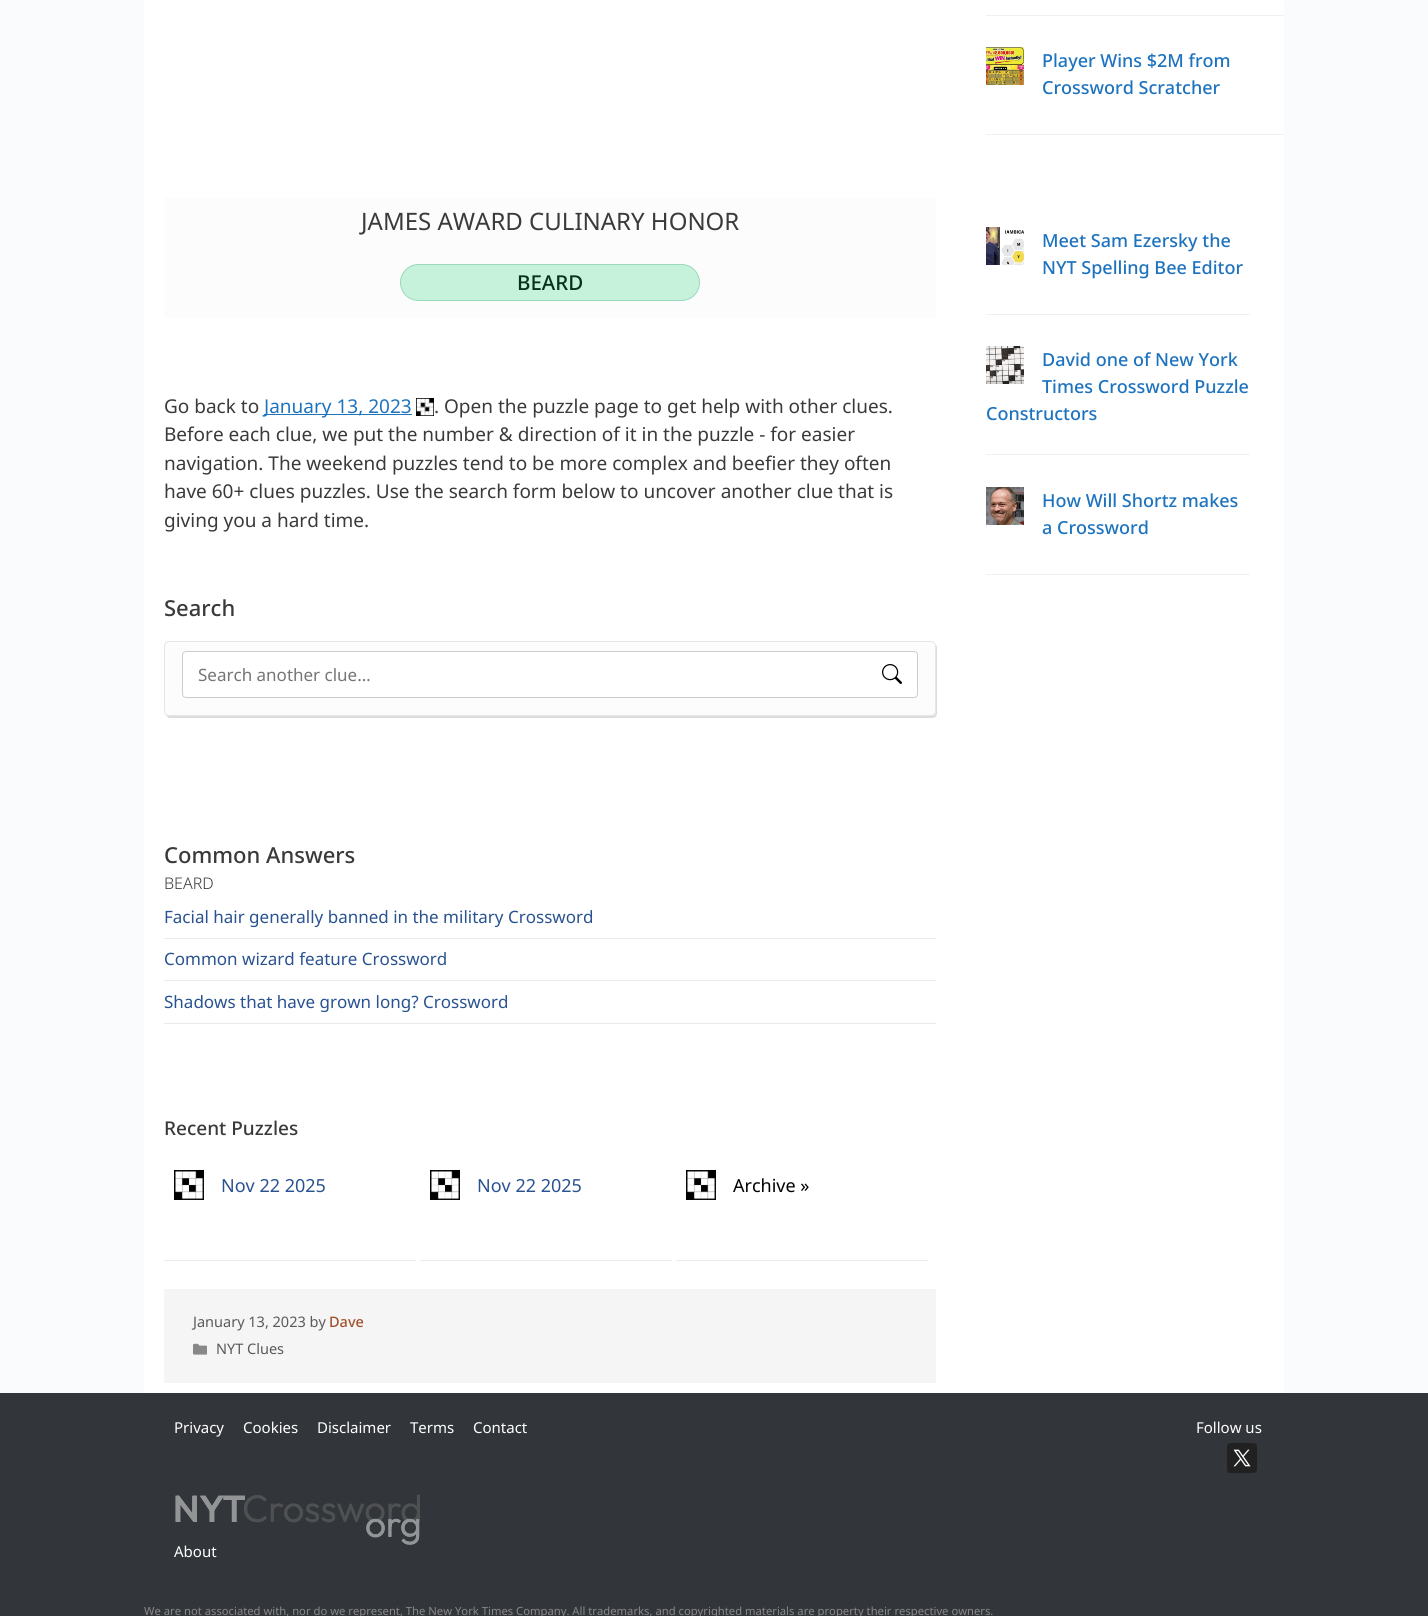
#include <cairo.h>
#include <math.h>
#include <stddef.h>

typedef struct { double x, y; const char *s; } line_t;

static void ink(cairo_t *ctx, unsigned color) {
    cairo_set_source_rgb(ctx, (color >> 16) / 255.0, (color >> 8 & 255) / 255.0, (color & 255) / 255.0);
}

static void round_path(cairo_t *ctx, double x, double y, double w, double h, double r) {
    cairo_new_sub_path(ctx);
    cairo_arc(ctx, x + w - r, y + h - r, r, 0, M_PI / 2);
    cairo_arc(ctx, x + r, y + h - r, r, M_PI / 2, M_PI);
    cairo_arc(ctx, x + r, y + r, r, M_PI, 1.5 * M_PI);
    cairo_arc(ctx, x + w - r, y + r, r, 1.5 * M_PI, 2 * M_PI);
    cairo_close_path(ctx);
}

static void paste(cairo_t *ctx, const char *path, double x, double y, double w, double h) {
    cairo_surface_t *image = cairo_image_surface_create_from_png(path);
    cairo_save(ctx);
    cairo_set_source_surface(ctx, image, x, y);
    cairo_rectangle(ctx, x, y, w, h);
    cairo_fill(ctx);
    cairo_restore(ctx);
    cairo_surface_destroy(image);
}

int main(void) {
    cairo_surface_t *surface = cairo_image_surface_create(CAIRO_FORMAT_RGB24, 1428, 1616);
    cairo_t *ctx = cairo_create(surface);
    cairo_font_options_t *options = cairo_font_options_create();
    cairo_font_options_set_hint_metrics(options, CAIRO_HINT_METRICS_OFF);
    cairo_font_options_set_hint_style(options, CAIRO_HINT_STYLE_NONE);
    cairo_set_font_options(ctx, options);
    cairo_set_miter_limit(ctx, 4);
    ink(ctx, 0xF9FBFC);
    cairo_paint(ctx);
    ink(ctx, 0xFFFFFF);
    cairo_rectangle(ctx, 144, 0, 1140, 1393);
    cairo_fill(ctx);
    ink(ctx, 0xFCFCFC);
    cairo_rectangle(ctx, 164, 198, 772, 120);
    cairo_fill(ctx);
    cairo_select_font_face(ctx, "Noto Sans", CAIRO_FONT_SLANT_NORMAL, CAIRO_FONT_WEIGHT_NORMAL);
    cairo_set_font_size(ctx, 24);
    ink(ctx, 0x3A3A3A);
    cairo_move_to(ctx, 361, 230);
    cairo_show_text(ctx, "JAMES AWARD CULINARY HONOR");
    ink(ctx, 0xC6F1DB);
    round_path(ctx, 400.5, 264.5, 299, 36, 18);
    cairo_fill_preserve(ctx);
    ink(ctx, 0x9BD8BC);
    cairo_set_line_width(ctx, 1);
    cairo_stroke(ctx);
    cairo_select_font_face(ctx, "Noto Sans Medium", CAIRO_FONT_SLANT_NORMAL, CAIRO_FONT_WEIGHT_NORMAL);
    cairo_set_font_size(ctx, 20.5);
    ink(ctx, 0x07321A);
    cairo_move_to(ctx, 517, 290);
    cairo_show_text(ctx, "BEARD");
    cairo_select_font_face(ctx, "Noto Sans", CAIRO_FONT_SLANT_NORMAL, CAIRO_FONT_WEIGHT_NORMAL);
    cairo_set_font_size(ctx, 19);
    ink(ctx, 0x3A3A3A);
    cairo_move_to(ctx, 164, 413);
    cairo_show_text(ctx, "Go back to");
    ink(ctx, 0x1E73BE);
    cairo_rectangle(ctx, 264, 414, 148, 1);
    cairo_fill(ctx);
    cairo_move_to(ctx, 264, 413);
    cairo_show_text(ctx, "January 13, 2023");
    paste(ctx, "media/1.png", 416, 398, 18, 18);
    ink(ctx, 0x3A3A3A);
    {
        static const line_t items[] = {
            {434, 413, ". Open the puzzle page to get help with other clues."},
            {164, 441, "Before each clue, we put the number & direction of it in the puzzle - for easier"},
            {164, 470, "navigation. The weekend puzzles tend to be more complex and beefier they often"},
            {164, 498, "have 60+ clues puzzles. Use the search form below to uncover another clue that is"},
            {164, 527, "giving you a hard time."},
        };
        for (size_t i = 0; i < sizeof items / sizeof *items; i++) {
            cairo_move_to(ctx, items[i].x, items[i].y);
            cairo_show_text(ctx, items[i].s);
        }
    }
    cairo_select_font_face(ctx, "Noto Sans Medium", CAIRO_FONT_SLANT_NORMAL, CAIRO_FONT_WEIGHT_NORMAL);
    cairo_set_font_size(ctx, 22);
    cairo_move_to(ctx, 164, 616);
    cairo_show_text(ctx, "Search");
    ink(ctx, 0xDCDCDC);
    cairo_new_path(ctx);
    cairo_move_to(ctx, 165, 714);
    cairo_curve_to(ctx, 166, 716, 168, 718, 170, 718);
    cairo_line_to(ctx, 932, 718);
    cairo_curve_to(ctx, 935, 718, 937, 716, 937, 713);
    cairo_line_to(ctx, 937, 648);
    cairo_curve_to(ctx, 937, 647, 937, 646, 936, 645);
    cairo_line_to(ctx, 936, 711);
    cairo_curve_to(ctx, 936, 714, 934, 716, 931, 716);
    cairo_line_to(ctx, 169, 716);
    cairo_curve_to(ctx, 167, 716, 166, 715, 165, 714);
    cairo_close_path(ctx);
    cairo_fill(ctx);
    ink(ctx, 0xFCFCFC);
    round_path(ctx, 164.5, 641.5, 771, 74, 4.5);
    cairo_fill_preserve(ctx);
    ink(ctx, 0xE4E6E9);
    cairo_stroke(ctx);
    ink(ctx, 0xFFFFFF);
    round_path(ctx, 182, 651, 736, 47, 4);
    cairo_fill(ctx);
    paste(ctx, "media/2.png", 882, 664, 20, 20);
    round_path(ctx, 182.5, 651.5, 735, 46, 3.5);
    ink(ctx, 0xCCCCCC);
    cairo_stroke(ctx);
    cairo_select_font_face(ctx, "Noto Sans", CAIRO_FONT_SLANT_NORMAL, CAIRO_FONT_WEIGHT_NORMAL);
    cairo_set_font_size(ctx, 17);
    ink(ctx, 0x757575);
    cairo_move_to(ctx, 198, 681);
    cairo_show_text(ctx, "Search another clue…");
    cairo_select_font_face(ctx, "Noto Sans Medium", CAIRO_FONT_SLANT_NORMAL, CAIRO_FONT_WEIGHT_NORMAL);
    cairo_set_font_size(ctx, 22);
    ink(ctx, 0x3A3A3A);
    cairo_move_to(ctx, 164, 863);
    cairo_show_text(ctx, "Common Answers");
    cairo_select_font_face(ctx, "Noto Sans Light", CAIRO_FONT_SLANT_NORMAL, CAIRO_FONT_WEIGHT_NORMAL);
    cairo_set_font_size(ctx, 16);
    cairo_move_to(ctx, 164, 889);
    cairo_show_text(ctx, "BEARD");
    ink(ctx, 0xE9E9E9);
    cairo_rectangle(ctx, 164, 938, 772, 1);
    cairo_fill(ctx);
    cairo_select_font_face(ctx, "Noto Sans", CAIRO_FONT_SLANT_NORMAL, CAIRO_FONT_WEIGHT_NORMAL);
    cairo_set_font_size(ctx, 17);
    ink(ctx, 0x295290);
    cairo_move_to(ctx, 164, 923);
    cairo_show_text(ctx, "Facial hair generally banned in the military Crossword");
    ink(ctx, 0xE9E9E9);
    cairo_rectangle(ctx, 164, 980, 772, 1);
    cairo_fill(ctx);
    ink(ctx, 0x295290);
    cairo_move_to(ctx, 164, 965);
    cairo_show_text(ctx, "Common wizard feature Crossword");
    ink(ctx, 0xE9E9E9);
    cairo_rectangle(ctx, 164, 1023, 772, 1);
    cairo_fill(ctx);
    ink(ctx, 0x295290);
    cairo_move_to(ctx, 164, 1008);
    cairo_show_text(ctx, "Shadows that have grown long? Crossword");
    cairo_select_font_face(ctx, "Noto Sans Medium", CAIRO_FONT_SLANT_NORMAL, CAIRO_FONT_WEIGHT_NORMAL);
    cairo_set_font_size(ctx, 19);
    ink(ctx, 0x3A3A3A);
    cairo_move_to(ctx, 164, 1135);
    cairo_show_text(ctx, "Recent Puzzles");
    ink(ctx, 0xE9E9E9);
    cairo_rectangle(ctx, 164, 1260, 252, 1);
    cairo_fill(ctx);
    paste(ctx, "media/3.png", 174, 1170, 30, 30);
    cairo_select_font_face(ctx, "Noto Sans", CAIRO_FONT_SLANT_NORMAL, CAIRO_FONT_WEIGHT_NORMAL);
    cairo_set_font_size(ctx, 18);
    ink(ctx, 0x295290);
    cairo_move_to(ctx, 221, 1192);
    cairo_show_text(ctx, "Nov 22 2025");
    ink(ctx, 0xE9E9E9);
    cairo_rectangle(ctx, 420, 1260, 252, 1);
    cairo_fill(ctx);
    paste(ctx, "media/3.png", 430, 1170, 30, 30);
    ink(ctx, 0x295290);
    cairo_move_to(ctx, 477, 1192);
    cairo_show_text(ctx, "Nov 22 2025");
    ink(ctx, 0xE9E9E9);
    cairo_rectangle(ctx, 676, 1260, 252, 1);
    cairo_fill(ctx);
    paste(ctx, "media/3.png", 686, 1170, 30, 30);
    ink(ctx, 0x000000);
    cairo_move_to(ctx, 733, 1192);
    cairo_show_text(ctx, "Archive »");
    ink(ctx, 0xF5F5F5);
    cairo_rectangle(ctx, 164, 1289, 772, 94);
    cairo_fill(ctx);
    cairo_set_font_size(ctx, 14.5);
    ink(ctx, 0x595959);
    cairo_move_to(ctx, 193, 1327);
    cairo_show_text(ctx, "January 13, 2023 by");
    cairo_select_font_face(ctx, "Noto Sans Medium", CAIRO_FONT_SLANT_NORMAL, CAIRO_FONT_WEIGHT_NORMAL);
    ink(ctx, 0xA0522D);
    cairo_move_to(ctx, 329, 1327);
    cairo_show_text(ctx, "Dave");
    paste(ctx, "media/4.png", 193, 1343, 14, 12);
    cairo_select_font_face(ctx, "Noto Sans", CAIRO_FONT_SLANT_NORMAL, CAIRO_FONT_WEIGHT_NORMAL);
    ink(ctx, 0x595959);
    cairo_move_to(ctx, 216, 1354);
    cairo_show_text(ctx, "NYT Clues");
    ink(ctx, 0xF0F0F0);
    cairo_rectangle(ctx, 986, 15, 298, 1);
    cairo_fill(ctx);
    cairo_rectangle(ctx, 986, 134, 298, 1);
    cairo_fill(ctx);
    paste(ctx, "media/5.png", 986, 47, 38, 38);
    cairo_select_font_face(ctx, "Noto Sans Medium", CAIRO_FONT_SLANT_NORMAL, CAIRO_FONT_WEIGHT_NORMAL);
    cairo_set_font_size(ctx, 18);
    ink(ctx, 0x1E73BE);
    cairo_move_to(ctx, 1042, 67);
    cairo_show_text(ctx, "Player Wins $2M from");
    cairo_move_to(ctx, 1042, 94);
    cairo_show_text(ctx, "Crossword Scratcher");
    ink(ctx, 0xF0F0F0);
    cairo_rectangle(ctx, 986, 314, 264, 1);
    cairo_fill(ctx);
    paste(ctx, "media/6.png", 986, 227, 38, 38);
    ink(ctx, 0x1E73BE);
    cairo_move_to(ctx, 1042, 247);
    cairo_show_text(ctx, "Meet Sam Ezersky the");
    cairo_move_to(ctx, 1042, 274);
    cairo_show_text(ctx, "NYT Spelling Bee Editor");
    ink(ctx, 0xF0F0F0);
    cairo_rectangle(ctx, 986, 454, 264, 1);
    cairo_fill(ctx);
    paste(ctx, "media/7.png", 986, 346, 38, 38);
    ink(ctx, 0x1E73BE);
    {
        static const line_t items[] = {
            {1042, 366, "David one of New York"},
            {1042, 393, "Times Crossword Puzzle"},
            {986, 420, "Constructors"},
        };
        for (size_t i = 0; i < sizeof items / sizeof *items; i++) {
            cairo_move_to(ctx, items[i].x, items[i].y);
            cairo_show_text(ctx, items[i].s);
        }
    }
    ink(ctx, 0xF0F0F0);
    cairo_rectangle(ctx, 986, 574, 264, 1);
    cairo_fill(ctx);
    paste(ctx, "media/8.png", 986, 487, 38, 38);
    ink(ctx, 0x1E73BE);
    cairo_move_to(ctx, 1042, 507);
    cairo_show_text(ctx, "How Will Shortz makes");
    cairo_move_to(ctx, 1042, 534);
    cairo_show_text(ctx, "a Crossword");
    ink(ctx, 0x32353A);
    cairo_rectangle(ctx, 0, 1393, 1428, 223);
    cairo_fill(ctx);
    cairo_select_font_face(ctx, "Noto Sans", CAIRO_FONT_SLANT_NORMAL, CAIRO_FONT_WEIGHT_NORMAL);
    cairo_set_font_size(ctx, 15);
    ink(ctx, 0xFFFFFF);
    {
        static const line_t items[] = {
            {174, 1433, "Privacy"},
            {243, 1433, "Cookies"},
            {317, 1433, "Disclaimer"},
            {410, 1433, "Terms"},
            {473, 1433, "Contact"},
        };
        for (size_t i = 0; i < sizeof items / sizeof *items; i++) {
            cairo_move_to(ctx, items[i].x, items[i].y);
            cairo_show_text(ctx, items[i].s);
        }
    }
    paste(ctx, "media/9.png", 175, 1494, 245, 51);
    cairo_move_to(ctx, 174, 1557);
    cairo_show_text(ctx, "About");
    cairo_move_to(ctx, 1196, 1433);
    cairo_show_text(ctx, "Follow us");
    paste(ctx, "media/10.png", 1227, 1443, 30, 30);
    cairo_set_font_size(ctx, 11.25);
    ink(ctx, 0x888888);
    cairo_move_to(ctx, 144, 1615);
    cairo_show_text(ctx, "We are not associated with, nor do we represent, The New York Times Company. All trademarks, and copyrighted materials are property their respective owners.");
    cairo_surface_write_to_png(surface, "image.png");
    cairo_font_options_destroy(options);
    cairo_destroy(ctx);
    cairo_surface_destroy(surface);
    return 0;
}
